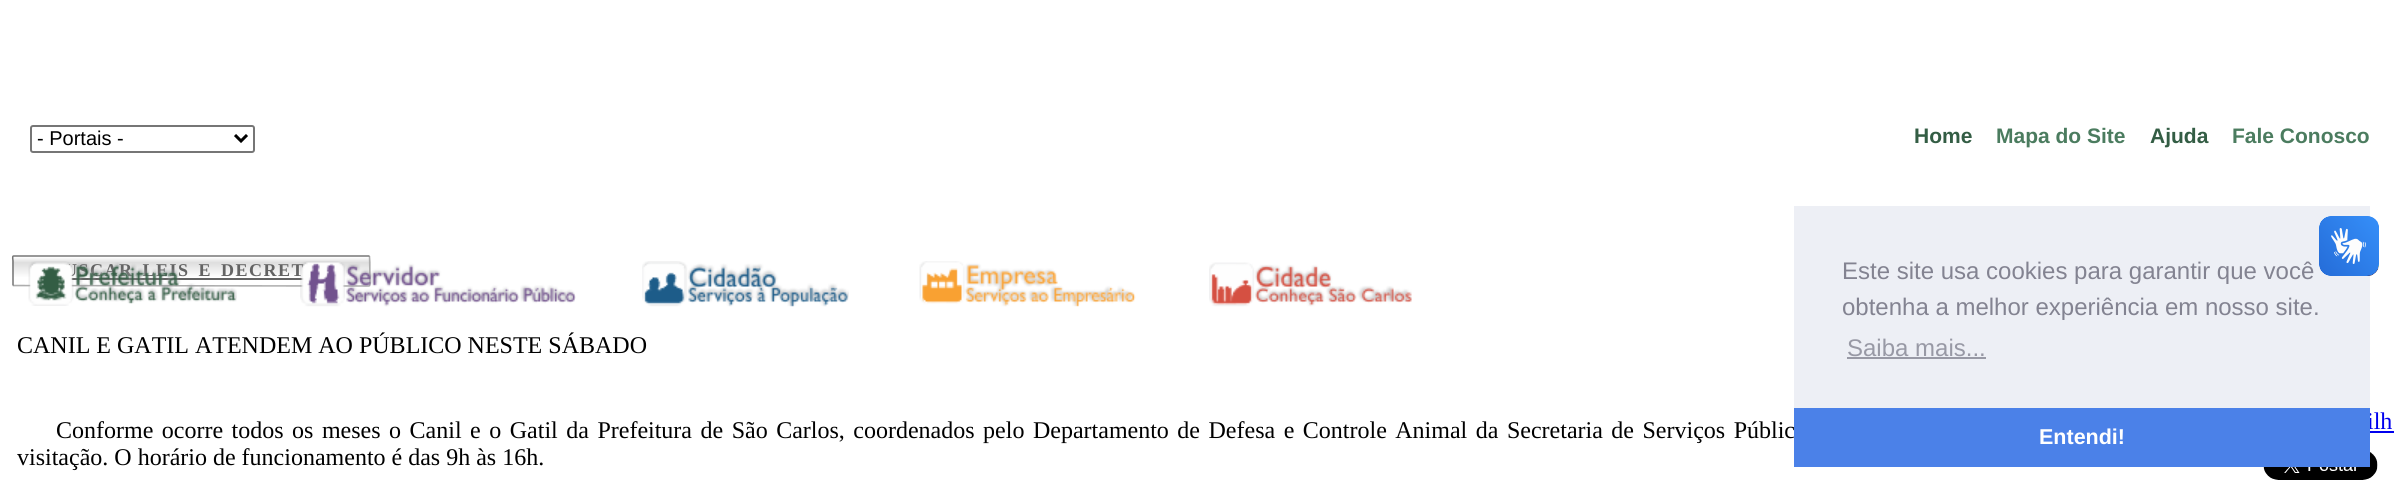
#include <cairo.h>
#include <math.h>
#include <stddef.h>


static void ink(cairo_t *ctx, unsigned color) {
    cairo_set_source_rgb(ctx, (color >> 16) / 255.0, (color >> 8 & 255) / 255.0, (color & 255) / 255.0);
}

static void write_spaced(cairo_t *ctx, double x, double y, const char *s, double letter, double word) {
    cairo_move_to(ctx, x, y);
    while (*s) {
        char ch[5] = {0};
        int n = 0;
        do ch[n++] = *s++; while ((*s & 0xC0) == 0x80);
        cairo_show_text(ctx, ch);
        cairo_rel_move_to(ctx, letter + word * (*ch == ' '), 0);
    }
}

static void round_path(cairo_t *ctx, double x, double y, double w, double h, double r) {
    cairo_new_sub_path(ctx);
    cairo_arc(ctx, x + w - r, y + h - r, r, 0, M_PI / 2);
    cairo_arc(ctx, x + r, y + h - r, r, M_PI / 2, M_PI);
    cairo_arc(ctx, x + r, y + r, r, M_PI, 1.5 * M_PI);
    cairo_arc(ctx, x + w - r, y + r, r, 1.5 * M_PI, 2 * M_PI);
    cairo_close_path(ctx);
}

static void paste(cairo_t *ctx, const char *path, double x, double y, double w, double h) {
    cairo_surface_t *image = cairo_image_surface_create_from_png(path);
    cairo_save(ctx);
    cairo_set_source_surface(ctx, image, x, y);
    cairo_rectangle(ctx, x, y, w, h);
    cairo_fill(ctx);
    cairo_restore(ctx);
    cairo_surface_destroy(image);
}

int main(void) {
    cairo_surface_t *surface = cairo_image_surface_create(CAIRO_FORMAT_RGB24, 2394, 490);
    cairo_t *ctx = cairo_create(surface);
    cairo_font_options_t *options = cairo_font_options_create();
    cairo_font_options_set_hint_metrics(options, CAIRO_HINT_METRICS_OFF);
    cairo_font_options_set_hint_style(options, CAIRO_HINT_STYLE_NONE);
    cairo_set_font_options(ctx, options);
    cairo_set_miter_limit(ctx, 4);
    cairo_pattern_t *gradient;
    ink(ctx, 0xFFFFFF);
    cairo_paint(ctx);
    round_path(ctx, 31, 126, 223, 26, 2);
    ink(ctx, 0x767676);
    cairo_stroke(ctx);
    cairo_new_path(ctx);
    cairo_move_to(ctx, 235, 135);
    cairo_line_to(ctx, 241, 141);
    cairo_line_to(ctx, 247, 135);
    ink(ctx, 0x000000);
    cairo_set_line_width(ctx, 3);
    cairo_stroke(ctx);
    cairo_select_font_face(ctx, "Liberation Sans", CAIRO_FONT_SLANT_NORMAL, CAIRO_FONT_WEIGHT_NORMAL);
    cairo_set_font_size(ctx, 20);
    cairo_move_to(ctx, 37, 145);
    cairo_show_text(ctx, "- Portais -");
    cairo_select_font_face(ctx, "Liberation Sans", CAIRO_FONT_SLANT_NORMAL, CAIRO_FONT_WEIGHT_BOLD);
    cairo_set_font_size(ctx, 21);
    ink(ctx, 0x335D44);
    cairo_move_to(ctx, 1914, 143);
    cairo_show_text(ctx, "Home");
    ink(ctx, 0x4B7C5F);
    cairo_move_to(ctx, 1996, 143);
    cairo_show_text(ctx, "Mapa do Site");
    ink(ctx, 0x335D44);
    cairo_move_to(ctx, 2150, 143);
    cairo_show_text(ctx, "Ajuda");
    ink(ctx, 0x4B7C5F);
    cairo_move_to(ctx, 2232, 143);
    cairo_show_text(ctx, "Fale Conosco");
    gradient = cairo_pattern_create_linear(191, 257, 191, 285);
    cairo_pattern_add_color_stop_rgba(gradient, 0, 1, 1, 1, 1);
    cairo_pattern_add_color_stop_rgba(gradient, 0.2, 0.871, 0.871, 0.871, 1);
    cairo_pattern_add_color_stop_rgba(gradient, 0.75, 1, 1, 1, 1);
    cairo_set_source(ctx, gradient);
    cairo_pattern_destroy(gradient);
    cairo_rectangle(ctx, 12, 257, 359, 20);
    cairo_fill(ctx);
    gradient = cairo_pattern_create_linear(191, 285, 191, 314);
    cairo_pattern_add_color_stop_rgba(gradient, 0, 1, 1, 1, 1);
    cairo_pattern_add_color_stop_rgba(gradient, 0.2, 0.871, 0.871, 0.871, 1);
    cairo_pattern_add_color_stop_rgba(gradient, 0.75, 1, 1, 1, 1);
    cairo_set_source(ctx, gradient);
    cairo_pattern_destroy(gradient);
    cairo_new_path(ctx);
    cairo_move_to(ctx, 12, 285);
    cairo_line_to(ctx, 371, 285);
    cairo_line_to(ctx, 371, 285.5);
    cairo_curve_to(ctx, 371, 286.5, 370.5, 287, 369.5, 287);
    cairo_line_to(ctx, 13.5, 287);
    cairo_curve_to(ctx, 12.5, 287, 12, 286.5, 12, 285.5);
    cairo_close_path(ctx);
    cairo_fill(ctx);
    cairo_new_path(ctx);
    cairo_move_to(ctx, 369.5, 256);
    cairo_line_to(ctx, 370, 280);
    cairo_curve_to(ctx, 370, 281.5, 370.5, 285.5, 369, 286);
    cairo_line_to(ctx, 13, 285.5);
    ink(ctx, 0xADADAD);
    cairo_set_line_width(ctx, 1.5);
    cairo_stroke(ctx);
    cairo_new_path(ctx);
    cairo_move_to(ctx, 13, 285.5);
    cairo_line_to(ctx, 13, 261);
    cairo_curve_to(ctx, 13, 260, 12, 256, 13.5, 256);
    cairo_line_to(ctx, 369.5, 256);
    ink(ctx, 0x737373);
    cairo_stroke(ctx);
    cairo_select_font_face(ctx, "Liberation Serif", CAIRO_FONT_SLANT_NORMAL, CAIRO_FONT_WEIGHT_BOLD);
    cairo_set_font_size(ctx, 18);
    ink(ctx, 0x636363);
    write_spaced(ctx, 64, 276, "USCAR LEIS E DECRET", 1.5, 3);
    cairo_rectangle(ctx, 70, 278, 234, 2);
    cairo_fill(ctx);
    paste(ctx, "media/1.png", 28, 261, 209, 45);
    paste(ctx, "media/2.png", 300, 261, 276, 46);
    paste(ctx, "media/3.png", 642, 261, 207, 46);
    paste(ctx, "media/4.png", 919, 261, 217, 46);
    paste(ctx, "media/5.png", 1209, 262, 203, 45);
    ink(ctx, 0xEDEFF5);
    cairo_rectangle(ctx, 1794, 206, 576, 202);
    cairo_fill(ctx);
    paste(ctx, "media/6.png", 2319, 216, 60, 60);
    paste(ctx, "media/7.png", 2319, 216, 60, 60);
    cairo_select_font_face(ctx, "Liberation Serif", CAIRO_FONT_SLANT_NORMAL, CAIRO_FONT_WEIGHT_NORMAL);
    cairo_set_font_size(ctx, 24);
    ink(ctx, 0x000000);
    cairo_move_to(ctx, 17, 353);
    cairo_show_text(ctx, "CANIL E GATIL ATENDEM AO PÚBLICO NESTE SÁBADO");
    write_spaced(ctx, 56, 438, "Conforme ocorre todos os meses o Canil e o Gatil da Prefeitura de São Carlos, coordenados pelo Departamento de Defesa e Controle Animal da Secretaria de Serviços Públic", 0, 2.5);
    cairo_move_to(ctx, 17, 465);
    cairo_show_text(ctx, "visitação. O horário de funcionamento é das 9h às 16h.");
    ink(ctx, 0x0000EE);
    cairo_move_to(ctx, 2367, 429);
    cairo_show_text(ctx, "ilh");
    cairo_rectangle(ctx, 2370, 431, 24, 2);
    cairo_fill(ctx);
    paste(ctx, "media/8.png", 2263, 452, 115, 28);
    cairo_select_font_face(ctx, "Liberation Sans", CAIRO_FONT_SLANT_NORMAL, CAIRO_FONT_WEIGHT_NORMAL);
    ink(ctx, 0x838391);
    cairo_move_to(ctx, 1842, 279);
    cairo_show_text(ctx, "Este site usa cookies para garantir que você");
    cairo_move_to(ctx, 1842, 315);
    cairo_show_text(ctx, "obtenha a melhor experiência em nosso site.");
    ink(ctx, 0x9899A5);
    cairo_move_to(ctx, 1847, 356);
    cairo_show_text(ctx, "Saiba mais...");
    cairo_rectangle(ctx, 1847, 357, 139, 2);
    cairo_fill(ctx);
    ink(ctx, 0x4B81E8);
    cairo_rectangle(ctx, 1794, 408, 576, 59);
    cairo_fill(ctx);
    cairo_select_font_face(ctx, "Liberation Sans", CAIRO_FONT_SLANT_NORMAL, CAIRO_FONT_WEIGHT_BOLD);
    cairo_set_font_size(ctx, 21.5);
    ink(ctx, 0xFFFFFF);
    cairo_move_to(ctx, 2039, 444);
    cairo_show_text(ctx, "Entendi!");
    cairo_surface_write_to_png(surface, "image.png");
    cairo_font_options_destroy(options);
    cairo_destroy(ctx);
    cairo_surface_destroy(surface);
    return 0;
}
